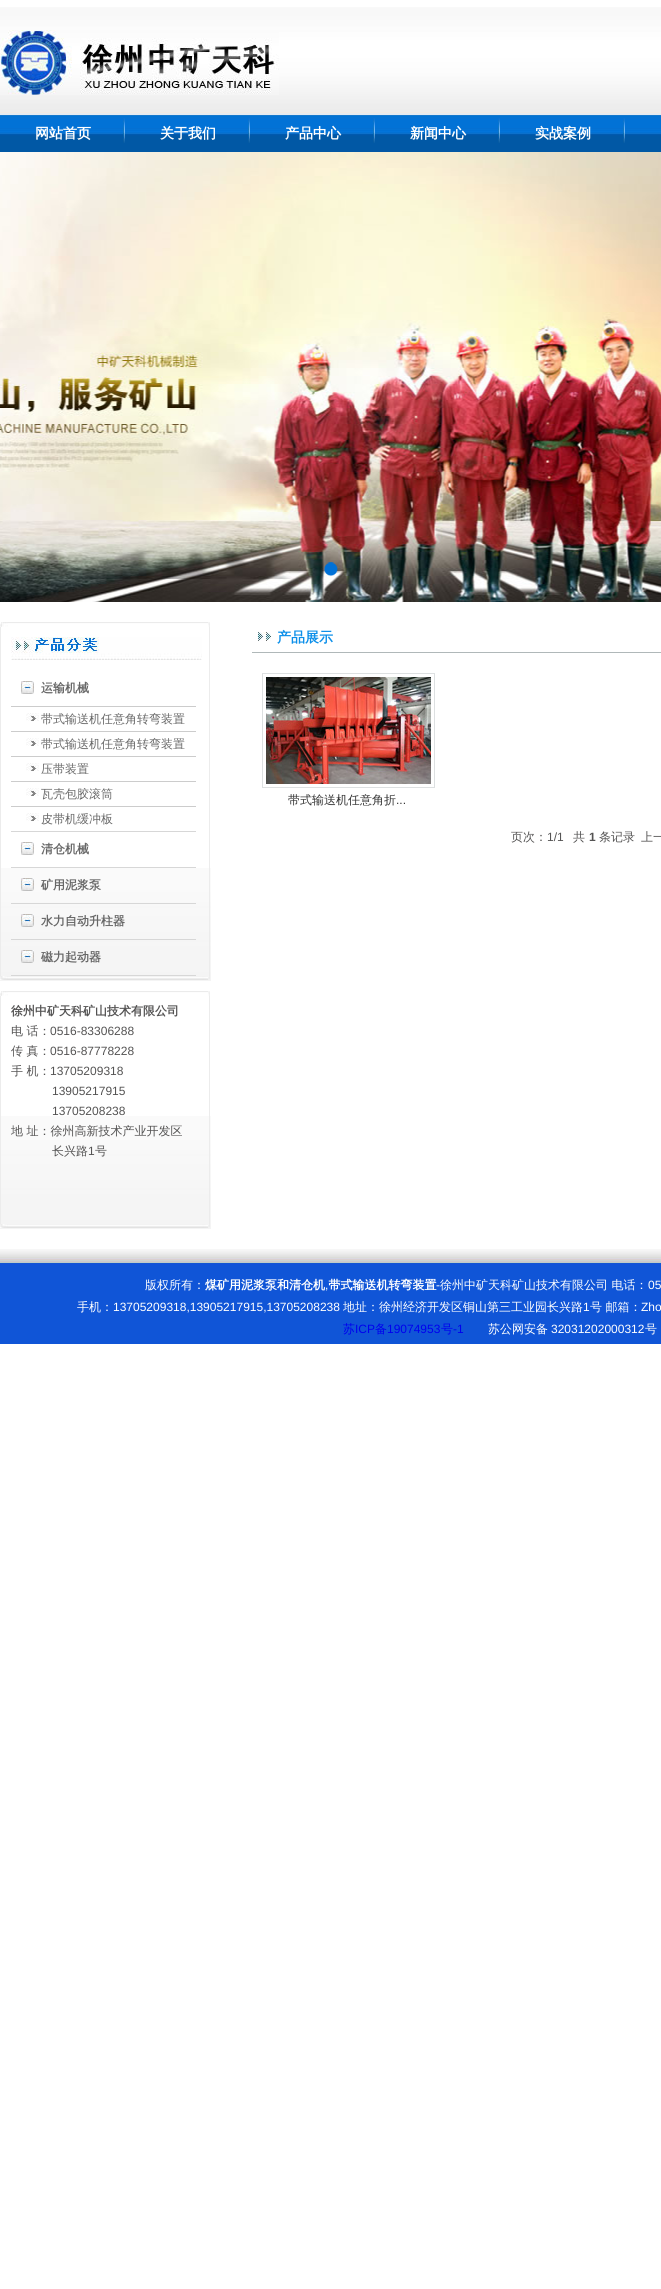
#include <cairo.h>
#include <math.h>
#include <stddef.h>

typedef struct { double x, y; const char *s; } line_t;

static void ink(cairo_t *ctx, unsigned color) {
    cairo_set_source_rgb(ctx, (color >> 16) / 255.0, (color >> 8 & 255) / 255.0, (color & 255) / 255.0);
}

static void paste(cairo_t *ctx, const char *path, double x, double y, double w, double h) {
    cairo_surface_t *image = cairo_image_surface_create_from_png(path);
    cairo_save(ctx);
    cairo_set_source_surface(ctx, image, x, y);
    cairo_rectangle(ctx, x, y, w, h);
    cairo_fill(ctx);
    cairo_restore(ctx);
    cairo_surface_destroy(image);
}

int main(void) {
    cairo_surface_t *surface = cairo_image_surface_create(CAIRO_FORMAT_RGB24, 661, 2289);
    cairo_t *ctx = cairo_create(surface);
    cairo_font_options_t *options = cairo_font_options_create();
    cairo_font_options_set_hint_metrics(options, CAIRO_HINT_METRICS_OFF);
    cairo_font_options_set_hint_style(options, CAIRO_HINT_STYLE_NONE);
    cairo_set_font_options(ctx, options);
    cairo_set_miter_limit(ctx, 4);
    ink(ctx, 0xFFFFFF);
    cairo_paint(ctx);
    paste(ctx, "media/1.png", 0, 7, 661, 145);
    paste(ctx, "media/2.png", 0, 30, 279, 65);
    paste(ctx, "media/3.png", 123, 118, 2, 25);
    cairo_select_font_face(ctx, "WenQuanYi Zen Hei", CAIRO_FONT_SLANT_NORMAL, CAIRO_FONT_WEIGHT_BOLD);
    cairo_set_font_size(ctx, 14);
    ink(ctx, 0xFFFFFF);
    cairo_move_to(ctx, 35, 138);
    cairo_show_text(ctx, "网站首页");
    paste(ctx, "media/3.png", 248, 118, 2, 25);
    cairo_move_to(ctx, 160, 138);
    cairo_show_text(ctx, "关于我们");
    paste(ctx, "media/3.png", 373, 118, 2, 25);
    cairo_move_to(ctx, 285, 138);
    cairo_show_text(ctx, "产品中心");
    paste(ctx, "media/3.png", 498, 118, 2, 25);
    cairo_move_to(ctx, 410, 138);
    cairo_show_text(ctx, "新闻中心");
    paste(ctx, "media/3.png", 623, 118, 2, 25);
    cairo_move_to(ctx, 535, 138);
    cairo_show_text(ctx, "实战案例");
    paste(ctx, "media/4.png", 0, 152, 661, 450);
    paste(ctx, "media/5.png", 324, 562, 14, 14);
    paste(ctx, "media/6.png", 0, 868, 211, 113);
    paste(ctx, "media/7.png", 0, 622, 210, 5);
    ink(ctx, 0xECECEC);
    cairo_rectangle(ctx, 209, 627, 1, 349);
    cairo_fill(ctx);
    cairo_rectangle(ctx, 0, 627, 1, 349);
    cairo_fill(ctx);
    paste(ctx, "media/8.png", 11, 637, 191, 23);
    paste(ctx, "media/9.png", 21, 681, 13, 13);
    ink(ctx, 0xD7D7D7);
    cairo_rectangle(ctx, 11, 831, 185, 1);
    cairo_fill(ctx);
    cairo_set_font_size(ctx, 12);
    ink(ctx, 0x676767);
    cairo_move_to(ctx, 41, 692);
    cairo_show_text(ctx, "运输机械");
    paste(ctx, "media/10.png", 26, 713, 13, 8);
    ink(ctx, 0xCCCCCC);
    cairo_rectangle(ctx, 11, 706, 185, 1);
    cairo_fill(ctx);
    cairo_select_font_face(ctx, "WenQuanYi Zen Hei Medium", CAIRO_FONT_SLANT_NORMAL, CAIRO_FONT_WEIGHT_NORMAL);
    ink(ctx, 0x676767);
    cairo_move_to(ctx, 41, 723);
    cairo_show_text(ctx, "带式输送机任意角转弯装置");
    paste(ctx, "media/10.png", 26, 738, 13, 8);
    ink(ctx, 0xCCCCCC);
    cairo_rectangle(ctx, 11, 731, 185, 1);
    cairo_fill(ctx);
    ink(ctx, 0x676767);
    cairo_move_to(ctx, 41, 748);
    cairo_show_text(ctx, "带式输送机任意角转弯装置");
    paste(ctx, "media/10.png", 26, 763, 13, 8);
    ink(ctx, 0xCCCCCC);
    cairo_rectangle(ctx, 11, 756, 185, 1);
    cairo_fill(ctx);
    ink(ctx, 0x676767);
    cairo_move_to(ctx, 41, 773);
    cairo_show_text(ctx, "压带装置");
    paste(ctx, "media/10.png", 26, 788, 13, 8);
    ink(ctx, 0xCCCCCC);
    cairo_rectangle(ctx, 11, 781, 185, 1);
    cairo_fill(ctx);
    ink(ctx, 0x676767);
    cairo_move_to(ctx, 41, 798);
    cairo_show_text(ctx, "瓦壳包胶滚筒");
    paste(ctx, "media/10.png", 26, 813, 13, 8);
    ink(ctx, 0xCCCCCC);
    cairo_rectangle(ctx, 11, 806, 185, 1);
    cairo_fill(ctx);
    ink(ctx, 0x676767);
    cairo_move_to(ctx, 41, 823);
    cairo_show_text(ctx, "皮带机缓冲板");
    paste(ctx, "media/9.png", 21, 842, 13, 13);
    ink(ctx, 0xD7D7D7);
    cairo_rectangle(ctx, 11, 867, 185, 1);
    cairo_fill(ctx);
    cairo_select_font_face(ctx, "WenQuanYi Zen Hei", CAIRO_FONT_SLANT_NORMAL, CAIRO_FONT_WEIGHT_BOLD);
    ink(ctx, 0x676767);
    cairo_move_to(ctx, 41, 853);
    cairo_show_text(ctx, "清仓机械");
    paste(ctx, "media/9.png", 21, 878, 13, 13);
    ink(ctx, 0xD7D7D7);
    cairo_rectangle(ctx, 11, 903, 185, 1);
    cairo_fill(ctx);
    ink(ctx, 0x676767);
    cairo_move_to(ctx, 41, 889);
    cairo_show_text(ctx, "矿用泥浆泵");
    paste(ctx, "media/9.png", 21, 914, 13, 13);
    ink(ctx, 0xD7D7D7);
    cairo_rectangle(ctx, 11, 939, 185, 1);
    cairo_fill(ctx);
    ink(ctx, 0x676767);
    cairo_move_to(ctx, 41, 925);
    cairo_show_text(ctx, "水力自动升柱器");
    paste(ctx, "media/9.png", 21, 950, 13, 13);
    ink(ctx, 0xD7D7D7);
    cairo_rectangle(ctx, 11, 975, 185, 1);
    cairo_fill(ctx);
    ink(ctx, 0x676767);
    cairo_move_to(ctx, 41, 961);
    cairo_show_text(ctx, "磁力起动器");
    paste(ctx, "media/11.png", 0, 976, 210, 4);
    paste(ctx, "media/6.png", 0, 1116, 211, 113);
    paste(ctx, "media/7.png", 0, 991, 210, 5);
    ink(ctx, 0xECECEC);
    cairo_rectangle(ctx, 209, 996, 1, 228);
    cairo_fill(ctx);
    cairo_rectangle(ctx, 0, 996, 1, 228);
    cairo_fill(ctx);
    ink(ctx, 0x545353);
    cairo_move_to(ctx, 11, 1015);
    cairo_show_text(ctx, "徐州中矿天科矿山技术有限公司");
    cairo_select_font_face(ctx, "WenQuanYi Zen Hei Medium", CAIRO_FONT_SLANT_NORMAL, CAIRO_FONT_WEIGHT_NORMAL);
    cairo_move_to(ctx, 11, 1035);
    cairo_show_text(ctx, "电 话：");
    cairo_select_font_face(ctx, "Liberation Sans", CAIRO_FONT_SLANT_NORMAL, CAIRO_FONT_WEIGHT_NORMAL);
    cairo_move_to(ctx, 50, 1035);
    cairo_show_text(ctx, "0516-83306288");
    cairo_select_font_face(ctx, "WenQuanYi Zen Hei Medium", CAIRO_FONT_SLANT_NORMAL, CAIRO_FONT_WEIGHT_NORMAL);
    cairo_move_to(ctx, 11, 1055);
    cairo_show_text(ctx, "传 真：");
    cairo_select_font_face(ctx, "Liberation Sans", CAIRO_FONT_SLANT_NORMAL, CAIRO_FONT_WEIGHT_NORMAL);
    cairo_move_to(ctx, 50, 1055);
    cairo_show_text(ctx, "0516-87778228");
    cairo_select_font_face(ctx, "WenQuanYi Zen Hei Medium", CAIRO_FONT_SLANT_NORMAL, CAIRO_FONT_WEIGHT_NORMAL);
    cairo_move_to(ctx, 11, 1075);
    cairo_show_text(ctx, "手 机：");
    cairo_select_font_face(ctx, "Liberation Sans", CAIRO_FONT_SLANT_NORMAL, CAIRO_FONT_WEIGHT_NORMAL);
    {
        static const line_t items[] = {
            {50, 1075, "13705209318"},
            {52, 1095, "13905217915"},
            {52, 1115, "13705208238"},
        };
        for (size_t i = 0; i < sizeof items / sizeof *items; i++) {
            cairo_move_to(ctx, items[i].x, items[i].y);
            cairo_show_text(ctx, items[i].s);
        }
    }
    cairo_select_font_face(ctx, "WenQuanYi Zen Hei Medium", CAIRO_FONT_SLANT_NORMAL, CAIRO_FONT_WEIGHT_NORMAL);
    cairo_move_to(ctx, 11, 1135);
    cairo_show_text(ctx, "地 址：徐州高新技术产业开发区");
    cairo_move_to(ctx, 52, 1155);
    cairo_show_text(ctx, "长兴路");
    cairo_select_font_face(ctx, "Liberation Sans", CAIRO_FONT_SLANT_NORMAL, CAIRO_FONT_WEIGHT_NORMAL);
    cairo_move_to(ctx, 88, 1155);
    cairo_show_text(ctx, "1");
    cairo_select_font_face(ctx, "WenQuanYi Zen Hei Medium", CAIRO_FONT_SLANT_NORMAL, CAIRO_FONT_WEIGHT_NORMAL);
    cairo_move_to(ctx, 95, 1155);
    cairo_show_text(ctx, "号");
    paste(ctx, "media/11.png", 0, 1224, 210, 4);
    paste(ctx, "media/12.png", 258, 632, 13, 9);
    ink(ctx, 0xB0B8B9);
    cairo_rectangle(ctx, 252, 652, 409, 1);
    cairo_fill(ctx);
    cairo_select_font_face(ctx, "WenQuanYi Zen Hei", CAIRO_FONT_SLANT_NORMAL, CAIRO_FONT_WEIGHT_BOLD);
    cairo_set_font_size(ctx, 14);
    ink(ctx, 0x0C8FE9);
    cairo_move_to(ctx, 277, 642);
    cairo_show_text(ctx, "产品展示");
    cairo_rectangle(ctx, 262.5, 673.5, 172, 114);
    ink(ctx, 0xDDE0E1);
    cairo_set_line_width(ctx, 1);
    cairo_stroke(ctx);
    paste(ctx, "media/13.png", 266, 677, 165, 107);
    cairo_select_font_face(ctx, "WenQuanYi Zen Hei Medium", CAIRO_FONT_SLANT_NORMAL, CAIRO_FONT_WEIGHT_NORMAL);
    cairo_set_font_size(ctx, 12);
    ink(ctx, 0x333333);
    cairo_move_to(ctx, 288, 804);
    cairo_show_text(ctx, "带式输送机任意角折");
    cairo_select_font_face(ctx, "Liberation Sans", CAIRO_FONT_SLANT_NORMAL, CAIRO_FONT_WEIGHT_NORMAL);
    cairo_move_to(ctx, 396, 804);
    cairo_show_text(ctx, "...");
    cairo_select_font_face(ctx, "WenQuanYi Zen Hei Medium", CAIRO_FONT_SLANT_NORMAL, CAIRO_FONT_WEIGHT_NORMAL);
    ink(ctx, 0x545353);
    cairo_move_to(ctx, 511, 841);
    cairo_show_text(ctx, "页次：");
    cairo_select_font_face(ctx, "Liberation Sans", CAIRO_FONT_SLANT_NORMAL, CAIRO_FONT_WEIGHT_NORMAL);
    cairo_move_to(ctx, 547, 841);
    cairo_show_text(ctx, "1/1");
    cairo_select_font_face(ctx, "WenQuanYi Zen Hei Medium", CAIRO_FONT_SLANT_NORMAL, CAIRO_FONT_WEIGHT_NORMAL);
    cairo_move_to(ctx, 573, 841);
    cairo_show_text(ctx, "共");
    cairo_select_font_face(ctx, "Liberation Sans", CAIRO_FONT_SLANT_NORMAL, CAIRO_FONT_WEIGHT_BOLD);
    cairo_move_to(ctx, 589, 841);
    cairo_show_text(ctx, "1");
    cairo_select_font_face(ctx, "WenQuanYi Zen Hei Medium", CAIRO_FONT_SLANT_NORMAL, CAIRO_FONT_WEIGHT_NORMAL);
    cairo_move_to(ctx, 599, 841);
    cairo_show_text(ctx, "条记录");
    cairo_move_to(ctx, 641, 841);
    cairo_show_text(ctx, "上一");
    paste(ctx, "media/14.png", 0, 1249, 661, 95);
    ink(ctx, 0xFFFFFF);
    cairo_move_to(ctx, 145, 1289);
    cairo_show_text(ctx, "版权所有：");
    cairo_select_font_face(ctx, "WenQuanYi Zen Hei", CAIRO_FONT_SLANT_NORMAL, CAIRO_FONT_WEIGHT_BOLD);
    cairo_move_to(ctx, 205, 1289);
    cairo_show_text(ctx, "煤矿用泥浆泵和清仓机 带式输送机转弯装置");
    cairo_select_font_face(ctx, "Liberation Sans", CAIRO_FONT_SLANT_NORMAL, CAIRO_FONT_WEIGHT_NORMAL);
    cairo_move_to(ctx, 436, 1289);
    cairo_show_text(ctx, "-");
    cairo_select_font_face(ctx, "WenQuanYi Zen Hei Medium", CAIRO_FONT_SLANT_NORMAL, CAIRO_FONT_WEIGHT_NORMAL);
    cairo_move_to(ctx, 440, 1289);
    cairo_show_text(ctx, "徐州中矿天科矿山技术有限公司 电话：");
    cairo_select_font_face(ctx, "Liberation Sans", CAIRO_FONT_SLANT_NORMAL, CAIRO_FONT_WEIGHT_NORMAL);
    cairo_move_to(ctx, 648, 1289);
    cairo_show_text(ctx, "05");
    cairo_move_to(ctx, 325, 1289);
    cairo_show_text(ctx, ",");
    cairo_select_font_face(ctx, "WenQuanYi Zen Hei Medium", CAIRO_FONT_SLANT_NORMAL, CAIRO_FONT_WEIGHT_NORMAL);
    cairo_move_to(ctx, 77, 1311);
    cairo_show_text(ctx, "手机：");
    cairo_select_font_face(ctx, "Liberation Sans", CAIRO_FONT_SLANT_NORMAL, CAIRO_FONT_WEIGHT_NORMAL);
    cairo_move_to(ctx, 113, 1311);
    cairo_show_text(ctx, "13705209318,13905217915,13705208238");
    cairo_select_font_face(ctx, "WenQuanYi Zen Hei Medium", CAIRO_FONT_SLANT_NORMAL, CAIRO_FONT_WEIGHT_NORMAL);
    cairo_move_to(ctx, 343, 1311);
    cairo_show_text(ctx, "地址：徐州经济开发区铜山第三工业园长兴路");
    cairo_select_font_face(ctx, "Liberation Sans", CAIRO_FONT_SLANT_NORMAL, CAIRO_FONT_WEIGHT_NORMAL);
    cairo_move_to(ctx, 583, 1311);
    cairo_show_text(ctx, "1");
    cairo_select_font_face(ctx, "WenQuanYi Zen Hei Medium", CAIRO_FONT_SLANT_NORMAL, CAIRO_FONT_WEIGHT_NORMAL);
    cairo_move_to(ctx, 590, 1311);
    cairo_show_text(ctx, "号 邮箱：");
    cairo_select_font_face(ctx, "Liberation Sans", CAIRO_FONT_SLANT_NORMAL, CAIRO_FONT_WEIGHT_NORMAL);
    cairo_move_to(ctx, 641, 1311);
    cairo_show_text(ctx, "Zho");
    cairo_select_font_face(ctx, "WenQuanYi Zen Hei Medium", CAIRO_FONT_SLANT_NORMAL, CAIRO_FONT_WEIGHT_NORMAL);
    ink(ctx, 0x0000EE);
    cairo_move_to(ctx, 343, 1333);
    cairo_show_text(ctx, "苏");
    cairo_select_font_face(ctx, "Liberation Sans", CAIRO_FONT_SLANT_NORMAL, CAIRO_FONT_WEIGHT_NORMAL);
    cairo_move_to(ctx, 355, 1333);
    cairo_show_text(ctx, "ICP");
    cairo_select_font_face(ctx, "WenQuanYi Zen Hei Medium", CAIRO_FONT_SLANT_NORMAL, CAIRO_FONT_WEIGHT_NORMAL);
    cairo_move_to(ctx, 375, 1333);
    cairo_show_text(ctx, "备");
    cairo_select_font_face(ctx, "Liberation Sans", CAIRO_FONT_SLANT_NORMAL, CAIRO_FONT_WEIGHT_NORMAL);
    cairo_move_to(ctx, 387, 1333);
    cairo_show_text(ctx, "19074953");
    cairo_select_font_face(ctx, "WenQuanYi Zen Hei Medium", CAIRO_FONT_SLANT_NORMAL, CAIRO_FONT_WEIGHT_NORMAL);
    cairo_move_to(ctx, 441, 1333);
    cairo_show_text(ctx, "号");
    cairo_select_font_face(ctx, "Liberation Sans", CAIRO_FONT_SLANT_NORMAL, CAIRO_FONT_WEIGHT_NORMAL);
    cairo_move_to(ctx, 453, 1333);
    cairo_show_text(ctx, "-1");
    cairo_select_font_face(ctx, "WenQuanYi Zen Hei Medium", CAIRO_FONT_SLANT_NORMAL, CAIRO_FONT_WEIGHT_NORMAL);
    ink(ctx, 0xFFFFFF);
    cairo_move_to(ctx, 488, 1333);
    cairo_show_text(ctx, "苏公网安备");
    cairo_select_font_face(ctx, "Liberation Sans", CAIRO_FONT_SLANT_NORMAL, CAIRO_FONT_WEIGHT_NORMAL);
    cairo_move_to(ctx, 551, 1333);
    cairo_show_text(ctx, "32031202000312");
    cairo_select_font_face(ctx, "WenQuanYi Zen Hei Medium", CAIRO_FONT_SLANT_NORMAL, CAIRO_FONT_WEIGHT_NORMAL);
    cairo_move_to(ctx, 645, 1333);
    cairo_show_text(ctx, "号");
    cairo_surface_write_to_png(surface, "image.png");
    cairo_font_options_destroy(options);
    cairo_destroy(ctx);
    cairo_surface_destroy(surface);
    return 0;
}
